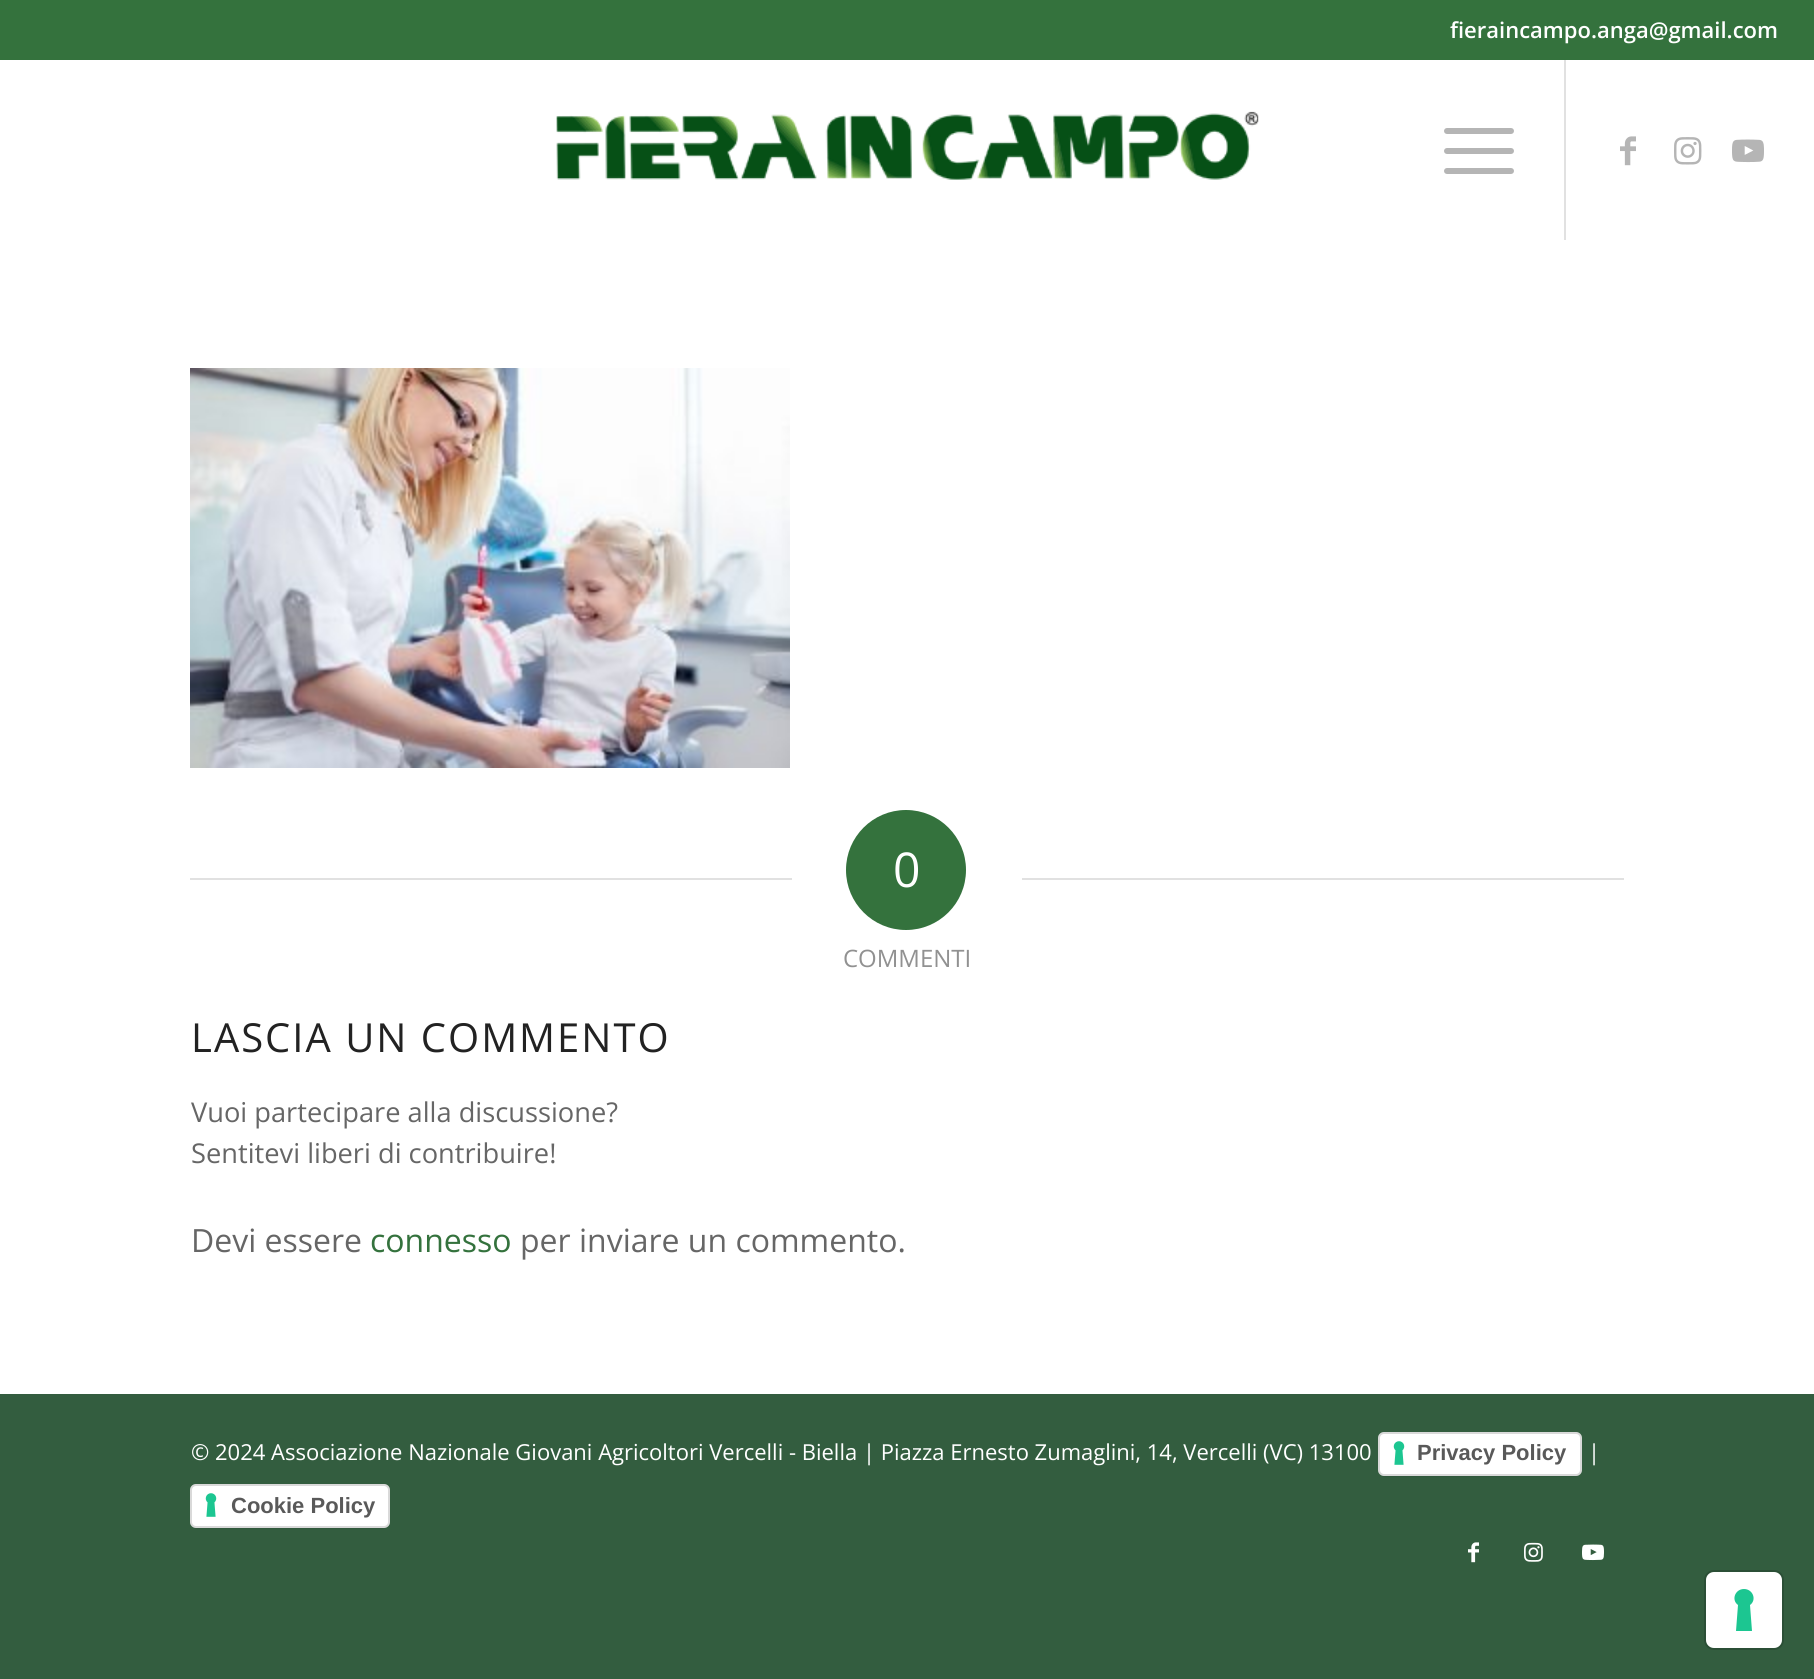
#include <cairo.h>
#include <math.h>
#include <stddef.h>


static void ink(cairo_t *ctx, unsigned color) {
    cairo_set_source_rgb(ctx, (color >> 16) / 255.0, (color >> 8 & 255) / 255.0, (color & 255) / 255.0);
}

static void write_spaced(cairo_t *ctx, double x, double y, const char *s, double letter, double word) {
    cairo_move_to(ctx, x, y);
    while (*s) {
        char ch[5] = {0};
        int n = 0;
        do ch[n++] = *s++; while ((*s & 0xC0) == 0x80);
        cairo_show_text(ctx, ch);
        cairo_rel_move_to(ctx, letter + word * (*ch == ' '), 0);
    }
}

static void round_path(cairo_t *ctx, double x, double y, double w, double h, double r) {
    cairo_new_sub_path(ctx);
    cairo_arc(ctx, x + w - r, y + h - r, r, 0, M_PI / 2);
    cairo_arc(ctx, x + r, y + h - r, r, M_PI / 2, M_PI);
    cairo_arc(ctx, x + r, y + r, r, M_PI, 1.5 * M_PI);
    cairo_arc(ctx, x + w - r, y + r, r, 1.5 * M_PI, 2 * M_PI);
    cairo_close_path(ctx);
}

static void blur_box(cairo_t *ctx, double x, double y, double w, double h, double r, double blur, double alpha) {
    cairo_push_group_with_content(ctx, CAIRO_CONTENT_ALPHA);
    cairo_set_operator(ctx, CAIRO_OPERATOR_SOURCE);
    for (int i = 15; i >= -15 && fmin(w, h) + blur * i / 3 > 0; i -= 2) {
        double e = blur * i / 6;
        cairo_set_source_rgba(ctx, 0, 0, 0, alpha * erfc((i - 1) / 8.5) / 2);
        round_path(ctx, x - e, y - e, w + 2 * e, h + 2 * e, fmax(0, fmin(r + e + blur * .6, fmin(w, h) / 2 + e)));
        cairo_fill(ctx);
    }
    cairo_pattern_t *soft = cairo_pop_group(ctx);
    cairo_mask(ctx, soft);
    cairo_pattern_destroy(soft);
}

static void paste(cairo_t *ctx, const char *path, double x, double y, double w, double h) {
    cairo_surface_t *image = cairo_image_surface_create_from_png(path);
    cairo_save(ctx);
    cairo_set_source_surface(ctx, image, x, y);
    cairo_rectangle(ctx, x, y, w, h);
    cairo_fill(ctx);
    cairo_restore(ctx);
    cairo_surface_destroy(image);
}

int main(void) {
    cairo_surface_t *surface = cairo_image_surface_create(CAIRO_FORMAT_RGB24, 1814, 1679);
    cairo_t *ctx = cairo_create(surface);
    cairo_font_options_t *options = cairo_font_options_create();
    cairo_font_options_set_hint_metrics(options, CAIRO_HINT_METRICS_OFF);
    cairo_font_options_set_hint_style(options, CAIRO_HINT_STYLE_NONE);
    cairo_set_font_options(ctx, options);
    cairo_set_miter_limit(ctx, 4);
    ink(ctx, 0x335D3F);
    cairo_paint(ctx);
    ink(ctx, 0x34723D);
    cairo_rectangle(ctx, 0, 0, 1814, 60);
    cairo_fill(ctx);
    cairo_select_font_face(ctx, "Open Sans SemiBold", CAIRO_FONT_SLANT_NORMAL, CAIRO_FONT_WEIGHT_NORMAL);
    cairo_set_font_size(ctx, 22);
    ink(ctx, 0xFFFFFF);
    cairo_move_to(ctx, 1450, 38);
    cairo_show_text(ctx, "fieraincampo.anga@gmail.com");
    cairo_rectangle(ctx, 0, 60, 1814, 1334);
    cairo_fill(ctx);
    paste(ctx, "media/1.png", 556, 111, 703, 69);
    ink(ctx, 0xE1E1E1);
    cairo_rectangle(ctx, 1564, 60, 2, 180);
    cairo_fill(ctx);
    ink(ctx, 0xB5B5B5);
    round_path(ctx, 1444, 148, 70, 6, 3);
    cairo_fill(ctx);
    round_path(ctx, 1444, 128, 70, 6, 3);
    cairo_fill(ctx);
    round_path(ctx, 1444, 168, 70, 6, 3);
    cairo_fill(ctx);
    paste(ctx, "media/2.png", 1620, 136, 16, 30);
    paste(ctx, "media/3.png", 1674, 137, 28, 28);
    paste(ctx, "media/4.png", 1732, 139, 32, 24);
    paste(ctx, "media/5.png", 190, 368, 600, 400);
    ink(ctx, 0xE1E1E1);
    cairo_rectangle(ctx, 190, 878, 602, 2);
    cairo_fill(ctx);
    ink(ctx, 0x34723D);
    cairo_arc(ctx, 906, 870, 60, 0, 2 * M_PI);
    cairo_fill(ctx);
    cairo_select_font_face(ctx, "Open Sans", CAIRO_FONT_SLANT_NORMAL, CAIRO_FONT_WEIGHT_NORMAL);
    cairo_set_font_size(ctx, 48);
    ink(ctx, 0xFFFFFF);
    cairo_move_to(ctx, 893, 887);
    cairo_show_text(ctx, "0");
    ink(ctx, 0xE1E1E1);
    cairo_rectangle(ctx, 1022, 878, 602, 2);
    cairo_fill(ctx);
    cairo_set_font_size(ctx, 24);
    ink(ctx, 0x919191);
    cairo_move_to(ctx, 843, 967);
    cairo_show_text(ctx, "COMMENTI");
    cairo_set_font_size(ctx, 40);
    ink(ctx, 0x222222);
    write_spaced(ctx, 191, 1052, "LASCIA UN COMMENTO", 2, 0);
    cairo_set_font_size(ctx, 27.25);
    ink(ctx, 0x666666);
    cairo_move_to(ctx, 191, 1122);
    cairo_show_text(ctx, "Vuoi partecipare alla discussione?");
    cairo_move_to(ctx, 191, 1163);
    cairo_show_text(ctx, "Sentitevi liberi di contribuire!");
    cairo_set_font_size(ctx, 32);
    cairo_move_to(ctx, 191, 1252);
    cairo_show_text(ctx, "Devi essere");
    ink(ctx, 0x34723D);
    cairo_move_to(ctx, 370, 1252);
    cairo_show_text(ctx, "connesso");
    ink(ctx, 0x666666);
    cairo_move_to(ctx, 520, 1252);
    cairo_show_text(ctx, "per inviare un commento.");
    cairo_set_font_size(ctx, 22);
    ink(ctx, 0xFFFFFF);
    cairo_move_to(ctx, 191, 1460);
    cairo_show_text(ctx, "© 2024 Associazione Nazionale Giovani Agricoltori Vercelli - Biella | Piazza Ernesto Zumaglini, 14, Vercelli (VC) 13100");
    ink(ctx, 0x000000);
    blur_box(ctx, 1380, 1436, 200, 40, 4, 1, 0.15);
    ink(ctx, 0xFFFFFF);
    round_path(ctx, 1378, 1432, 204, 44, 6);
    cairo_fill(ctx);
    paste(ctx, "media/6.png", 1393, 1441, 12, 24);
    round_path(ctx, 1379, 1433, 202, 42, 5);
    cairo_set_source_rgba(ctx, 0, 0, 0, 0.15);
    cairo_stroke(ctx);
    cairo_select_font_face(ctx, "Liberation Sans", CAIRO_FONT_SLANT_NORMAL, CAIRO_FONT_WEIGHT_BOLD);
    ink(ctx, 0x595959);
    cairo_move_to(ctx, 1417, 1460);
    cairo_show_text(ctx, "Privacy Policy");
    cairo_select_font_face(ctx, "Open Sans", CAIRO_FONT_SLANT_NORMAL, CAIRO_FONT_WEIGHT_NORMAL);
    ink(ctx, 0xFFFFFF);
    cairo_move_to(ctx, 1588, 1460);
    cairo_show_text(ctx, "|");
    ink(ctx, 0x000000);
    blur_box(ctx, 192, 1488, 196, 40, 4, 1, 0.15);
    ink(ctx, 0xFFFFFF);
    round_path(ctx, 190, 1484, 200, 44, 6);
    cairo_fill(ctx);
    paste(ctx, "media/6.png", 205, 1493, 12, 24);
    round_path(ctx, 191, 1485, 198, 42, 5);
    cairo_set_source_rgba(ctx, 0, 0, 0, 0.15);
    cairo_stroke(ctx);
    cairo_select_font_face(ctx, "Liberation Sans", CAIRO_FONT_SLANT_NORMAL, CAIRO_FONT_WEIGHT_BOLD);
    ink(ctx, 0x595959);
    cairo_move_to(ctx, 231, 1513);
    cairo_show_text(ctx, "Cookie Policy");
    paste(ctx, "media/7.png", 1468, 1542, 11, 21);
    paste(ctx, "media/8.png", 1524, 1542, 19, 20);
    paste(ctx, "media/9.png", 1582, 1544, 22, 17);
    round_path(ctx, 1705, 1571, 78, 78, 9);
    ink(ctx, 0x2B4F36);
    cairo_stroke(ctx);
    ink(ctx, 0xFFFFFF);
    round_path(ctx, 1706, 1572, 76, 76, 8);
    cairo_fill(ctx);
    ink(ctx, 0x1CC691);
    cairo_set_fill_rule(ctx, CAIRO_FILL_RULE_EVEN_ODD);
    cairo_new_path(ctx);
    cairo_move_to(ctx, 1744, 1589);
    cairo_curve_to(ctx, 1753, 1589, 1757, 1600, 1750, 1605);
    cairo_line_to(ctx, 1752, 1631);
    cairo_line_to(ctx, 1736, 1631);
    cairo_line_to(ctx, 1738, 1605);
    cairo_curve_to(ctx, 1731, 1600, 1735, 1589, 1744, 1589);
    cairo_close_path(ctx);
    cairo_fill(ctx);
    cairo_surface_write_to_png(surface, "image.png");
    cairo_font_options_destroy(options);
    cairo_destroy(ctx);
    cairo_surface_destroy(surface);
    return 0;
}
